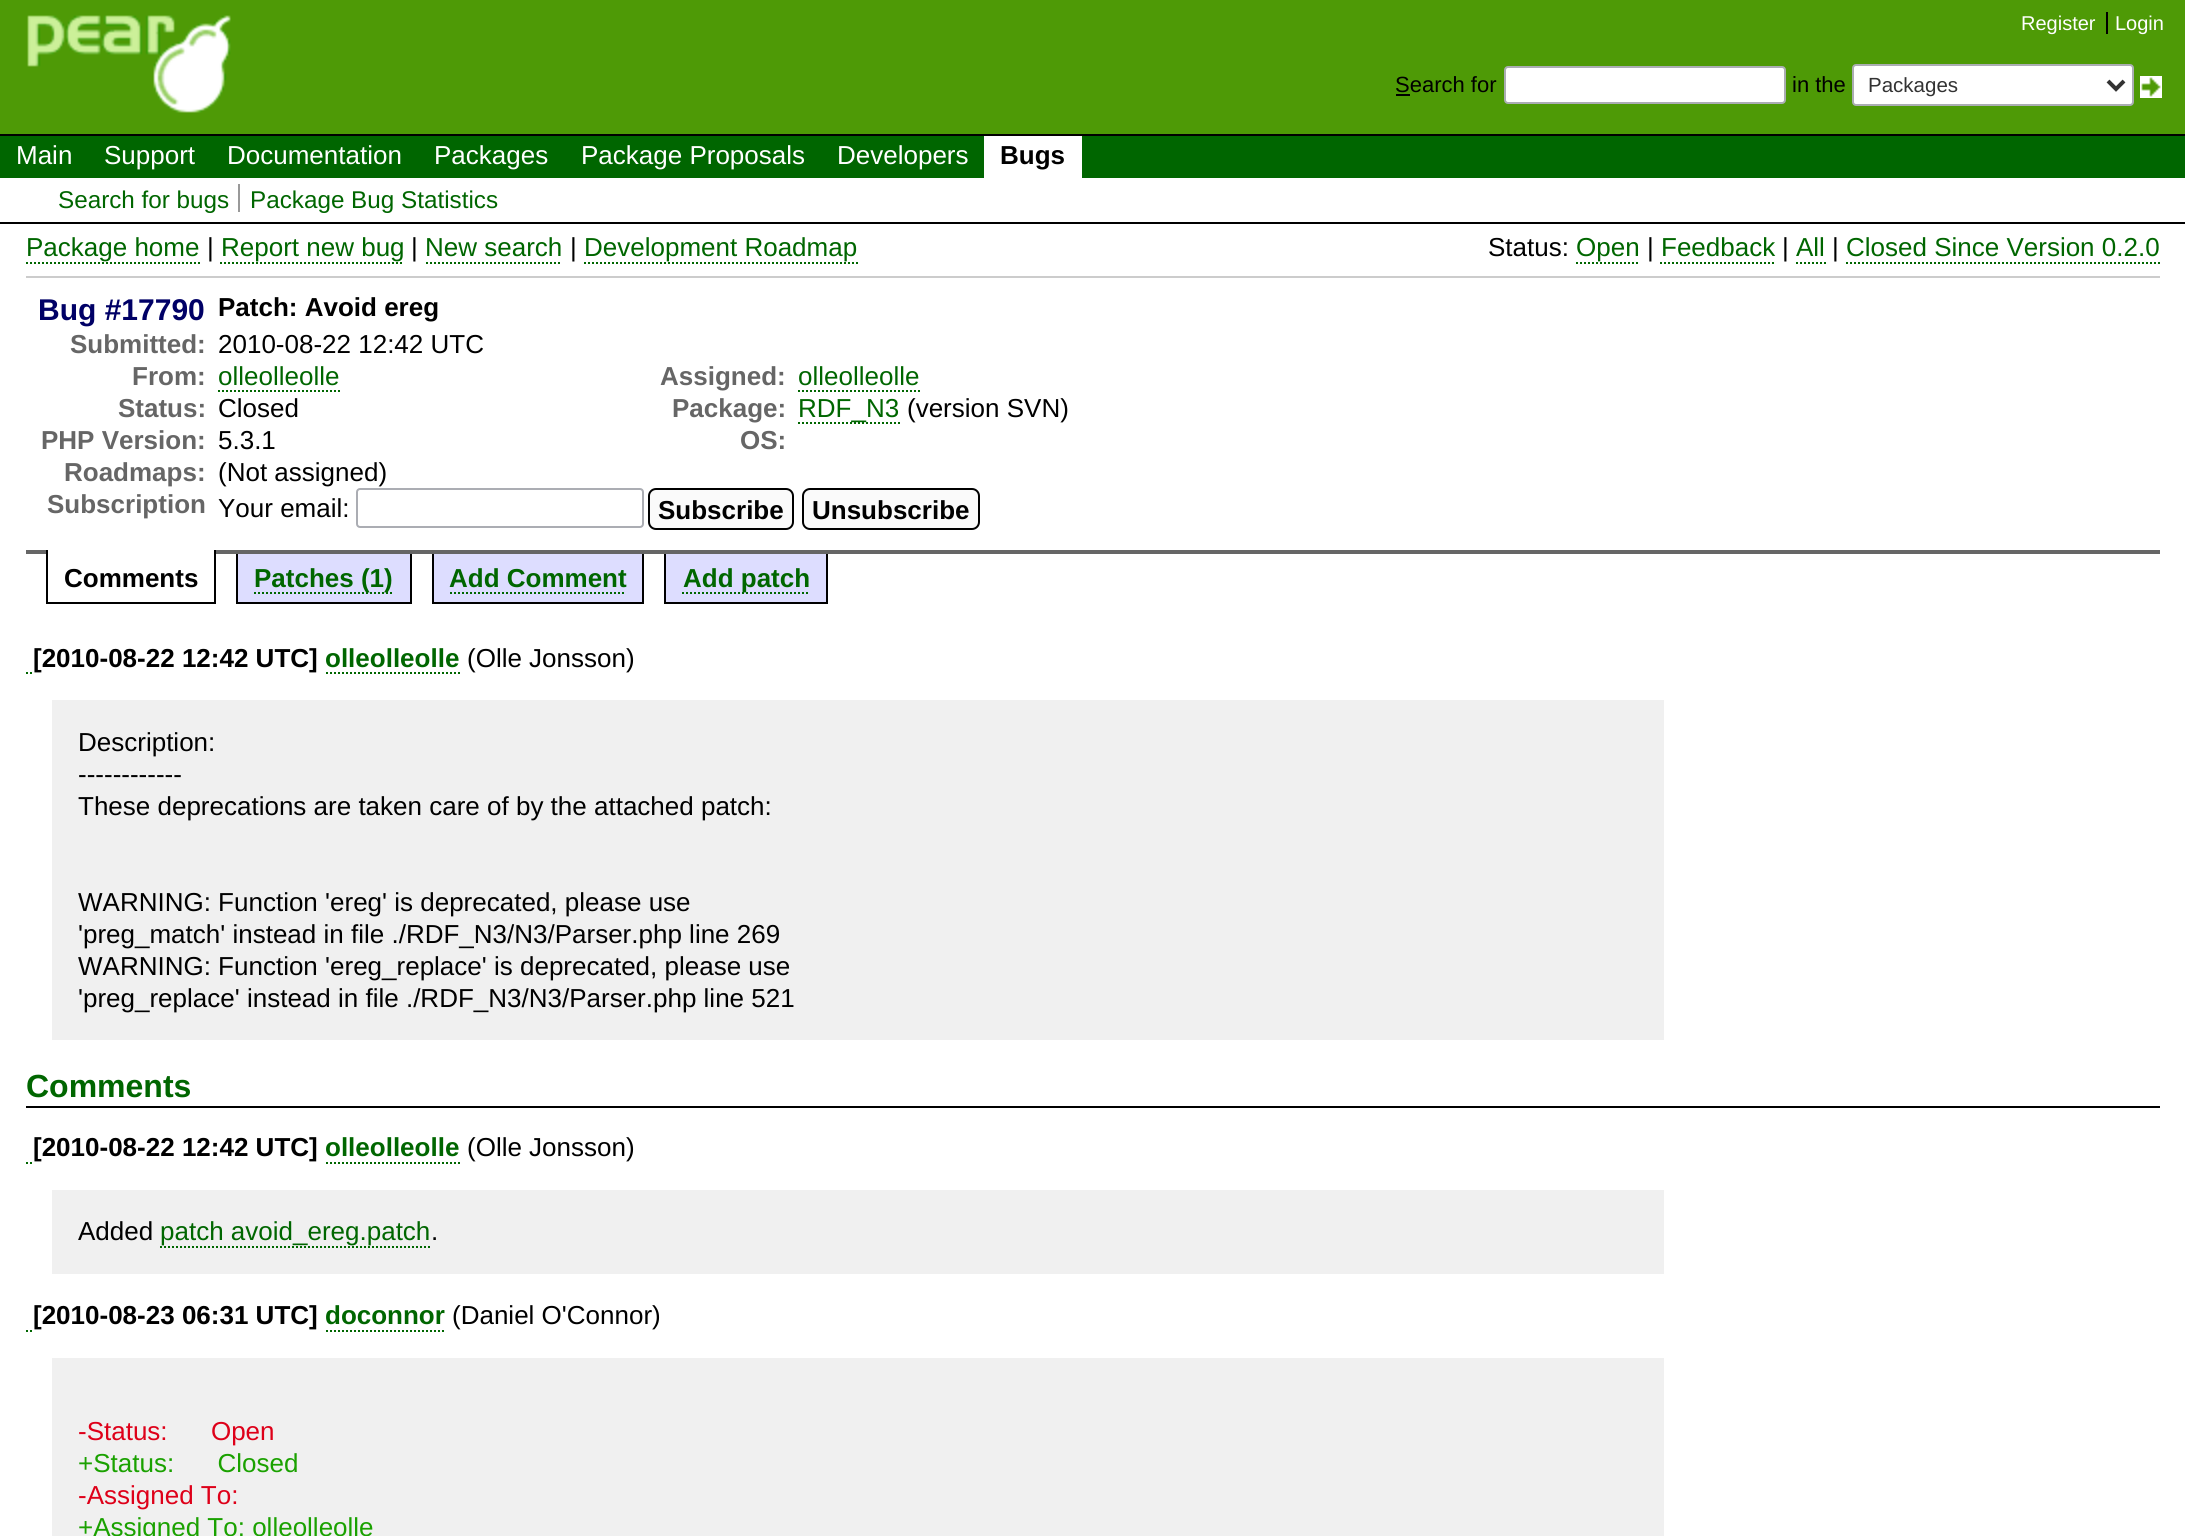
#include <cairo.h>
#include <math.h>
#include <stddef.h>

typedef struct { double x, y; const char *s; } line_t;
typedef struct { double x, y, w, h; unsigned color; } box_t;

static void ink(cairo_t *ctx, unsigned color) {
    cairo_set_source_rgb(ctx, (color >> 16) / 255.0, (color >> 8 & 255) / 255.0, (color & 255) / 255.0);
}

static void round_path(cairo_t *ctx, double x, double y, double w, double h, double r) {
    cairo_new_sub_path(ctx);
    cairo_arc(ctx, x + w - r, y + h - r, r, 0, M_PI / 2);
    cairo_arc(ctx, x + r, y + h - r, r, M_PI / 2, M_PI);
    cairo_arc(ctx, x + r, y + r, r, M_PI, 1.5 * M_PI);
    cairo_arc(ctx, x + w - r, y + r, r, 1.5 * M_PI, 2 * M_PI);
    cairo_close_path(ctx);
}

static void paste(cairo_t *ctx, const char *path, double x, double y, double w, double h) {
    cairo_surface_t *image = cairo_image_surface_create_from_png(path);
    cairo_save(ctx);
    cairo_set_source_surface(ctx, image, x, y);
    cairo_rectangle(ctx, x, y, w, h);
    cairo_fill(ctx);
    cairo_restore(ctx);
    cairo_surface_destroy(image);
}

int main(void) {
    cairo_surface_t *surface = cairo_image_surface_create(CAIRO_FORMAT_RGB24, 2185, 1536);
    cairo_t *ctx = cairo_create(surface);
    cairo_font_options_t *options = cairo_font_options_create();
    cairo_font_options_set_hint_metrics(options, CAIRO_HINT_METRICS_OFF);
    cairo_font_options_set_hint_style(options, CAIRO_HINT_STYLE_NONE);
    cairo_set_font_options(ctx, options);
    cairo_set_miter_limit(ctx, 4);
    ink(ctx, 0xFFFFFF);
    cairo_paint(ctx);
    ink(ctx, 0x4E9A06);
    cairo_rectangle(ctx, 0, 0, 2185, 134);
    cairo_fill(ctx);
    paste(ctx, "media/1.png", 27, 15, 204, 98);
    cairo_select_font_face(ctx, "Liberation Sans", CAIRO_FONT_SLANT_NORMAL, CAIRO_FONT_WEIGHT_NORMAL);
    cairo_set_font_size(ctx, 20);
    ink(ctx, 0xFFFFFF);
    cairo_move_to(ctx, 2021, 30);
    cairo_show_text(ctx, "Register");
    ink(ctx, 0x000000);
    cairo_rectangle(ctx, 2106, 12, 2, 22);
    cairo_fill(ctx);
    ink(ctx, 0xFFFFFF);
    cairo_move_to(ctx, 2115, 30);
    cairo_show_text(ctx, "Login");
    cairo_set_font_size(ctx, 22);
    ink(ctx, 0x000000);
    cairo_move_to(ctx, 1395, 92);
    cairo_show_text(ctx, "Search for");
    cairo_rectangle(ctx, 1396, 94, 14, 2);
    cairo_fill(ctx);
    ink(ctx, 0xFFFFFF);
    round_path(ctx, 1505, 67, 280, 36, 3);
    cairo_fill_preserve(ctx);
    ink(ctx, 0xABADB3);
    cairo_stroke(ctx);
    ink(ctx, 0x000000);
    cairo_move_to(ctx, 1792, 92);
    cairo_show_text(ctx, "in the");
    ink(ctx, 0xFFFFFF);
    round_path(ctx, 1853, 65, 280, 40, 3);
    cairo_fill_preserve(ctx);
    ink(ctx, 0xABADB3);
    cairo_stroke(ctx);
    cairo_new_path(ctx);
    cairo_move_to(ctx, 2108, 81);
    cairo_line_to(ctx, 2116, 89);
    cairo_line_to(ctx, 2124, 81);
    ink(ctx, 0x333333);
    cairo_set_line_width(ctx, 4);
    cairo_stroke(ctx);
    cairo_set_font_size(ctx, 20.5);
    cairo_move_to(ctx, 1868, 92);
    cairo_show_text(ctx, "Packages");
    paste(ctx, "media/2.png", 2140, 76, 22, 22);
    ink(ctx, 0x006600);
    cairo_rectangle(ctx, 0, 136, 2185, 42);
    cairo_fill(ctx);
    ink(ctx, 0x000000);
    cairo_rectangle(ctx, 0, 134, 2185, 2);
    cairo_fill(ctx);
    cairo_set_font_size(ctx, 26);
    ink(ctx, 0xFFFFFF);
    {
        static const line_t items[] = {
            {16, 164, "Main"},
            {104, 164, "Support"},
            {227, 164, "Documentation"},
            {434, 164, "Packages"},
            {581, 164, "Package Proposals"},
            {837, 164, "Developers"},
        };
        for (size_t i = 0; i < sizeof items / sizeof *items; i++) {
            cairo_move_to(ctx, items[i].x, items[i].y);
            cairo_show_text(ctx, items[i].s);
        }
    }
    cairo_rectangle(ctx, 984, 136, 98, 42);
    cairo_fill(ctx);
    cairo_select_font_face(ctx, "Liberation Sans", CAIRO_FONT_SLANT_NORMAL, CAIRO_FONT_WEIGHT_BOLD);
    ink(ctx, 0x000000);
    cairo_move_to(ctx, 1000, 164);
    cairo_show_text(ctx, "Bugs");
    cairo_rectangle(ctx, 0, 222, 2185, 2);
    cairo_fill(ctx);
    cairo_select_font_face(ctx, "Liberation Sans", CAIRO_FONT_SLANT_NORMAL, CAIRO_FONT_WEIGHT_NORMAL);
    cairo_set_font_size(ctx, 24.25);
    ink(ctx, 0x006600);
    cairo_move_to(ctx, 58, 208);
    cairo_show_text(ctx, "Search for bugs");
    cairo_move_to(ctx, 250, 208);
    cairo_show_text(ctx, "Package Bug Statistics");
    ink(ctx, 0x999999);
    cairo_rectangle(ctx, 238, 184, 2, 28);
    cairo_fill(ctx);
    cairo_set_font_size(ctx, 26);
    ink(ctx, 0x006600);
    cairo_move_to(ctx, 26, 256);
    cairo_show_text(ctx, "Package home");
    cairo_new_path(ctx);
    cairo_move_to(ctx, 26, 263);
    cairo_line_to(ctx, 200, 263);
    cairo_set_line_width(ctx, 2);
    cairo_set_dash(ctx, (double[]){2, 2}, 2, 0);
    cairo_stroke(ctx);
    ink(ctx, 0x000000);
    cairo_move_to(ctx, 207, 256);
    cairo_show_text(ctx, "|");
    ink(ctx, 0x006600);
    cairo_move_to(ctx, 221, 256);
    cairo_show_text(ctx, "Report new bug");
    cairo_new_path(ctx);
    cairo_move_to(ctx, 220, 263);
    cairo_line_to(ctx, 404, 263);
    cairo_stroke(ctx);
    ink(ctx, 0x000000);
    cairo_move_to(ctx, 411, 256);
    cairo_show_text(ctx, "|");
    ink(ctx, 0x006600);
    cairo_move_to(ctx, 425, 256);
    cairo_show_text(ctx, "New search");
    cairo_new_path(ctx);
    cairo_move_to(ctx, 426, 263);
    cairo_line_to(ctx, 562, 263);
    cairo_stroke(ctx);
    ink(ctx, 0x000000);
    cairo_move_to(ctx, 570, 256);
    cairo_show_text(ctx, "|");
    ink(ctx, 0x006600);
    cairo_move_to(ctx, 584, 256);
    cairo_show_text(ctx, "Development Roadmap");
    cairo_new_path(ctx);
    cairo_move_to(ctx, 584, 263);
    cairo_line_to(ctx, 858, 263);
    cairo_stroke(ctx);
    ink(ctx, 0x000000);
    cairo_move_to(ctx, 1488, 256);
    cairo_show_text(ctx, "Status:");
    ink(ctx, 0x006600);
    cairo_move_to(ctx, 1576, 256);
    cairo_show_text(ctx, "Open");
    cairo_new_path(ctx);
    cairo_move_to(ctx, 1576, 263);
    cairo_line_to(ctx, 1640, 263);
    cairo_stroke(ctx);
    ink(ctx, 0x000000);
    cairo_move_to(ctx, 1647, 256);
    cairo_show_text(ctx, "|");
    ink(ctx, 0x006600);
    cairo_move_to(ctx, 1661, 256);
    cairo_show_text(ctx, "Feedback");
    cairo_new_path(ctx);
    cairo_move_to(ctx, 1660, 263);
    cairo_line_to(ctx, 1776, 263);
    cairo_stroke(ctx);
    ink(ctx, 0x000000);
    cairo_move_to(ctx, 1782, 256);
    cairo_show_text(ctx, "|");
    ink(ctx, 0x006600);
    cairo_move_to(ctx, 1796, 256);
    cairo_show_text(ctx, "All");
    cairo_new_path(ctx);
    cairo_move_to(ctx, 1796, 263);
    cairo_line_to(ctx, 1826, 263);
    cairo_stroke(ctx);
    ink(ctx, 0x000000);
    cairo_move_to(ctx, 1832, 256);
    cairo_show_text(ctx, "|");
    ink(ctx, 0x006600);
    cairo_move_to(ctx, 1846, 256);
    cairo_show_text(ctx, "Closed Since Version 0.2.0");
    cairo_new_path(ctx);
    cairo_move_to(ctx, 1846, 263);
    cairo_line_to(ctx, 2160, 263);
    cairo_stroke(ctx);
    ink(ctx, 0xCCCCCC);
    cairo_rectangle(ctx, 26, 276, 2134, 2);
    cairo_fill(ctx);
    cairo_select_font_face(ctx, "Liberation Sans", CAIRO_FONT_SLANT_NORMAL, CAIRO_FONT_WEIGHT_BOLD);
    cairo_set_font_size(ctx, 30);
    ink(ctx, 0x000066);
    cairo_move_to(ctx, 38, 320);
    cairo_show_text(ctx, "Bug #17790");
    cairo_set_font_size(ctx, 26);
    ink(ctx, 0x000000);
    cairo_move_to(ctx, 218, 316);
    cairo_show_text(ctx, "Patch: Avoid ereg");
    ink(ctx, 0x666666);
    cairo_move_to(ctx, 70, 353);
    cairo_show_text(ctx, "Submitted:");
    cairo_select_font_face(ctx, "Liberation Sans", CAIRO_FONT_SLANT_NORMAL, CAIRO_FONT_WEIGHT_NORMAL);
    ink(ctx, 0x000000);
    cairo_move_to(ctx, 218, 353);
    cairo_show_text(ctx, "2010-08-22 12:42 UTC");
    cairo_select_font_face(ctx, "Liberation Sans", CAIRO_FONT_SLANT_NORMAL, CAIRO_FONT_WEIGHT_BOLD);
    ink(ctx, 0x666666);
    cairo_move_to(ctx, 132, 385);
    cairo_show_text(ctx, "From:");
    cairo_select_font_face(ctx, "Liberation Sans", CAIRO_FONT_SLANT_NORMAL, CAIRO_FONT_WEIGHT_NORMAL);
    ink(ctx, 0x006600);
    cairo_move_to(ctx, 218, 385);
    cairo_show_text(ctx, "olleolleolle");
    cairo_new_path(ctx);
    cairo_move_to(ctx, 218, 391);
    cairo_line_to(ctx, 340, 391);
    cairo_stroke(ctx);
    cairo_select_font_face(ctx, "Liberation Sans", CAIRO_FONT_SLANT_NORMAL, CAIRO_FONT_WEIGHT_BOLD);
    ink(ctx, 0x666666);
    cairo_move_to(ctx, 660, 385);
    cairo_show_text(ctx, "Assigned:");
    cairo_select_font_face(ctx, "Liberation Sans", CAIRO_FONT_SLANT_NORMAL, CAIRO_FONT_WEIGHT_NORMAL);
    ink(ctx, 0x006600);
    cairo_move_to(ctx, 798, 385);
    cairo_show_text(ctx, "olleolleolle");
    cairo_new_path(ctx);
    cairo_move_to(ctx, 798, 391);
    cairo_line_to(ctx, 920, 391);
    cairo_stroke(ctx);
    cairo_select_font_face(ctx, "Liberation Sans", CAIRO_FONT_SLANT_NORMAL, CAIRO_FONT_WEIGHT_BOLD);
    ink(ctx, 0x666666);
    cairo_move_to(ctx, 118, 417);
    cairo_show_text(ctx, "Status:");
    cairo_select_font_face(ctx, "Liberation Sans", CAIRO_FONT_SLANT_NORMAL, CAIRO_FONT_WEIGHT_NORMAL);
    ink(ctx, 0x000000);
    cairo_move_to(ctx, 218, 417);
    cairo_show_text(ctx, "Closed");
    cairo_select_font_face(ctx, "Liberation Sans", CAIRO_FONT_SLANT_NORMAL, CAIRO_FONT_WEIGHT_BOLD);
    ink(ctx, 0x666666);
    cairo_move_to(ctx, 672, 417);
    cairo_show_text(ctx, "Package:");
    cairo_new_path(ctx);
    cairo_move_to(ctx, 798, 423);
    cairo_line_to(ctx, 900, 423);
    ink(ctx, 0x006600);
    cairo_stroke(ctx);
    cairo_select_font_face(ctx, "Liberation Sans", CAIRO_FONT_SLANT_NORMAL, CAIRO_FONT_WEIGHT_NORMAL);
    cairo_move_to(ctx, 798, 417);
    cairo_show_text(ctx, "RDF_N3");
    ink(ctx, 0x000000);
    cairo_move_to(ctx, 907, 417);
    cairo_show_text(ctx, "(version SVN)");
    cairo_select_font_face(ctx, "Liberation Sans", CAIRO_FONT_SLANT_NORMAL, CAIRO_FONT_WEIGHT_BOLD);
    ink(ctx, 0x666666);
    cairo_move_to(ctx, 41, 449);
    cairo_show_text(ctx, "PHP Version:");
    cairo_select_font_face(ctx, "Liberation Sans", CAIRO_FONT_SLANT_NORMAL, CAIRO_FONT_WEIGHT_NORMAL);
    ink(ctx, 0x000000);
    cairo_move_to(ctx, 218, 449);
    cairo_show_text(ctx, "5.3.1");
    cairo_select_font_face(ctx, "Liberation Sans", CAIRO_FONT_SLANT_NORMAL, CAIRO_FONT_WEIGHT_BOLD);
    ink(ctx, 0x666666);
    cairo_move_to(ctx, 740, 449);
    cairo_show_text(ctx, "OS:");
    cairo_move_to(ctx, 64, 481);
    cairo_show_text(ctx, "Roadmaps:");
    cairo_select_font_face(ctx, "Liberation Sans", CAIRO_FONT_SLANT_NORMAL, CAIRO_FONT_WEIGHT_NORMAL);
    ink(ctx, 0x000000);
    cairo_move_to(ctx, 218, 481);
    cairo_show_text(ctx, "(Not assigned)");
    cairo_select_font_face(ctx, "Liberation Sans", CAIRO_FONT_SLANT_NORMAL, CAIRO_FONT_WEIGHT_BOLD);
    ink(ctx, 0x666666);
    cairo_move_to(ctx, 47, 513);
    cairo_show_text(ctx, "Subscription");
    cairo_select_font_face(ctx, "Liberation Sans", CAIRO_FONT_SLANT_NORMAL, CAIRO_FONT_WEIGHT_NORMAL);
    ink(ctx, 0x000000);
    cairo_move_to(ctx, 218, 517);
    cairo_show_text(ctx, "Your email:");
    round_path(ctx, 357, 489, 286, 38, 3);
    ink(ctx, 0xABADB3);
    cairo_set_dash(ctx, NULL, 0, 0);
    cairo_stroke(ctx);
    ink(ctx, 0xFAFAFA);
    round_path(ctx, 649, 489, 144, 40, 7);
    cairo_fill_preserve(ctx);
    ink(ctx, 0x000000);
    cairo_stroke(ctx);
    cairo_select_font_face(ctx, "Liberation Sans", CAIRO_FONT_SLANT_NORMAL, CAIRO_FONT_WEIGHT_BOLD);
    cairo_move_to(ctx, 658, 519);
    cairo_show_text(ctx, "Subscribe");
    ink(ctx, 0xFAFAFA);
    round_path(ctx, 803, 489, 176, 40, 7);
    cairo_fill_preserve(ctx);
    ink(ctx, 0x000000);
    cairo_stroke(ctx);
    cairo_move_to(ctx, 812, 519);
    cairo_show_text(ctx, "Unsubscribe");
    {
        static const box_t items[] = {
            {26, 550, 2134, 4, 0x666666},
            {48, 550, 166, 4, 0xFFFFFF},
            {214, 550, 2, 54, 0x000000},
            {46, 602, 170, 2, 0x000000},
            {46, 550, 2, 54, 0x000000},
        };
        for (size_t i = 0; i < sizeof items / sizeof *items; i++) {
            ink(ctx, items[i].color);
            cairo_rectangle(ctx, items[i].x, items[i].y, items[i].w, items[i].h);
            cairo_fill(ctx);
        }
    }
    cairo_move_to(ctx, 64, 587);
    cairo_show_text(ctx, "Comments");
    {
        static const box_t items[] = {
            {238, 554, 172, 48, 0xDDDDFF},
            {410, 554, 2, 50, 0x000000},
            {236, 602, 176, 2, 0x000000},
            {236, 554, 2, 50, 0x000000},
        };
        for (size_t i = 0; i < sizeof items / sizeof *items; i++) {
            ink(ctx, items[i].color);
            cairo_rectangle(ctx, items[i].x, items[i].y, items[i].w, items[i].h);
            cairo_fill(ctx);
        }
    }
    cairo_new_path(ctx);
    cairo_move_to(ctx, 254, 593);
    cairo_line_to(ctx, 394, 593);
    ink(ctx, 0x006600);
    cairo_set_dash(ctx, (double[]){2, 2}, 2, 0);
    cairo_stroke(ctx);
    cairo_move_to(ctx, 254, 587);
    cairo_show_text(ctx, "Patches (1)");
    {
        static const box_t items[] = {
            {434, 554, 208, 48, 0xDDDDFF},
            {642, 554, 2, 50, 0x000000},
            {432, 602, 212, 2, 0x000000},
            {432, 554, 2, 50, 0x000000},
        };
        for (size_t i = 0; i < sizeof items / sizeof *items; i++) {
            ink(ctx, items[i].color);
            cairo_rectangle(ctx, items[i].x, items[i].y, items[i].w, items[i].h);
            cairo_fill(ctx);
        }
    }
    ink(ctx, 0x006600);
    cairo_move_to(ctx, 449, 587);
    cairo_show_text(ctx, "Add Comment");
    cairo_new_path(ctx);
    cairo_move_to(ctx, 450, 593);
    cairo_line_to(ctx, 626, 593);
    cairo_stroke(ctx);
    {
        static const box_t items[] = {
            {666, 554, 160, 48, 0xDDDDFF},
            {826, 554, 2, 50, 0x000000},
            {664, 602, 164, 2, 0x000000},
            {664, 554, 2, 50, 0x000000},
        };
        for (size_t i = 0; i < sizeof items / sizeof *items; i++) {
            ink(ctx, items[i].color);
            cairo_rectangle(ctx, items[i].x, items[i].y, items[i].w, items[i].h);
            cairo_fill(ctx);
        }
    }
    cairo_new_path(ctx);
    cairo_move_to(ctx, 682, 593);
    cairo_line_to(ctx, 810, 593);
    ink(ctx, 0x006600);
    cairo_stroke(ctx);
    cairo_move_to(ctx, 683, 587);
    cairo_show_text(ctx, "Add patch");
    cairo_new_path(ctx);
    cairo_move_to(ctx, 26, 673);
    cairo_line_to(ctx, 28, 673);
    cairo_move_to(ctx, 30, 673);
    cairo_line_to(ctx, 32, 673);
    cairo_set_dash(ctx, NULL, 0, 0);
    cairo_stroke(ctx);
    ink(ctx, 0x000000);
    cairo_move_to(ctx, 33, 667);
    cairo_show_text(ctx, "[2010-08-22 12:42 UTC]");
    ink(ctx, 0x006600);
    cairo_move_to(ctx, 325, 667);
    cairo_show_text(ctx, "olleolleolle");
    cairo_new_path(ctx);
    cairo_move_to(ctx, 326, 673);
    cairo_line_to(ctx, 460, 673);
    cairo_set_dash(ctx, (double[]){2, 2}, 2, 0);
    cairo_stroke(ctx);
    cairo_select_font_face(ctx, "Liberation Sans", CAIRO_FONT_SLANT_NORMAL, CAIRO_FONT_WEIGHT_NORMAL);
    ink(ctx, 0x000000);
    cairo_move_to(ctx, 467, 667);
    cairo_show_text(ctx, "(Olle Jonsson)");
    ink(ctx, 0xF0F0F0);
    cairo_rectangle(ctx, 52, 700, 1612, 340);
    cairo_fill(ctx);
    ink(ctx, 0x000000);
    {
        static const line_t items[] = {
            {78, 751, "Description:"},
            {78, 783, "------------"},
            {78, 815, "These deprecations are taken care of by the attached patch:"},
            {78, 911, "WARNING: Function 'ereg' is deprecated, please use"},
            {78, 943, "'preg_match' instead in file ./RDF_N3/N3/Parser.php line 269"},
            {78, 975, "WARNING: Function 'ereg_replace' is deprecated, please use"},
            {78, 1007, "'preg_replace' instead in file ./RDF_N3/N3/Parser.php line 521"},
        };
        for (size_t i = 0; i < sizeof items / sizeof *items; i++) {
            cairo_move_to(ctx, items[i].x, items[i].y);
            cairo_show_text(ctx, items[i].s);
        }
    }
    cairo_rectangle(ctx, 26, 1106, 2134, 2);
    cairo_fill(ctx);
    cairo_select_font_face(ctx, "Liberation Sans", CAIRO_FONT_SLANT_NORMAL, CAIRO_FONT_WEIGHT_BOLD);
    cairo_set_font_size(ctx, 32);
    ink(ctx, 0x006600);
    cairo_move_to(ctx, 26, 1097);
    cairo_show_text(ctx, "Comments");
    cairo_set_font_size(ctx, 26);
    ink(ctx, 0x000000);
    cairo_move_to(ctx, 33, 1156);
    cairo_show_text(ctx, "[2010-08-22 12:42 UTC]");
    ink(ctx, 0x006600);
    cairo_move_to(ctx, 325, 1156);
    cairo_show_text(ctx, "olleolleolle");
    cairo_new_path(ctx);
    cairo_move_to(ctx, 326, 1163);
    cairo_line_to(ctx, 460, 1163);
    cairo_stroke(ctx);
    cairo_select_font_face(ctx, "Liberation Sans", CAIRO_FONT_SLANT_NORMAL, CAIRO_FONT_WEIGHT_NORMAL);
    ink(ctx, 0x000000);
    cairo_move_to(ctx, 467, 1156);
    cairo_show_text(ctx, "(Olle Jonsson)");
    cairo_new_path(ctx);
    cairo_move_to(ctx, 26, 1163);
    cairo_line_to(ctx, 28, 1163);
    cairo_move_to(ctx, 30, 1163);
    cairo_line_to(ctx, 32, 1163);
    ink(ctx, 0x006600);
    cairo_set_dash(ctx, NULL, 0, 0);
    cairo_stroke(ctx);
    ink(ctx, 0xF0F0F0);
    cairo_rectangle(ctx, 52, 1190, 1612, 84);
    cairo_fill(ctx);
    ink(ctx, 0x000000);
    cairo_move_to(ctx, 78, 1240);
    cairo_show_text(ctx, "Added");
    ink(ctx, 0x006600);
    cairo_move_to(ctx, 160, 1240);
    cairo_show_text(ctx, "patch avoid_ereg.patch");
    cairo_new_path(ctx);
    cairo_move_to(ctx, 160, 1247);
    cairo_line_to(ctx, 430, 1247);
    cairo_set_dash(ctx, (double[]){2, 2}, 2, 0);
    cairo_stroke(ctx);
    ink(ctx, 0x000000);
    cairo_move_to(ctx, 431, 1240);
    cairo_show_text(ctx, ".");
    cairo_select_font_face(ctx, "Liberation Sans", CAIRO_FONT_SLANT_NORMAL, CAIRO_FONT_WEIGHT_BOLD);
    cairo_move_to(ctx, 33, 1324);
    cairo_show_text(ctx, "[2010-08-23 06:31 UTC]");
    ink(ctx, 0x006600);
    cairo_move_to(ctx, 325, 1324);
    cairo_show_text(ctx, "doconnor");
    cairo_new_path(ctx);
    cairo_move_to(ctx, 326, 1331);
    cairo_line_to(ctx, 446, 1331);
    cairo_stroke(ctx);
    cairo_select_font_face(ctx, "Liberation Sans", CAIRO_FONT_SLANT_NORMAL, CAIRO_FONT_WEIGHT_NORMAL);
    ink(ctx, 0x000000);
    cairo_move_to(ctx, 452, 1324);
    cairo_show_text(ctx, "(Daniel O'Connor)");
    cairo_new_path(ctx);
    cairo_move_to(ctx, 26, 1331);
    cairo_line_to(ctx, 28, 1331);
    cairo_move_to(ctx, 30, 1331);
    cairo_line_to(ctx, 32, 1331);
    ink(ctx, 0x006600);
    cairo_set_dash(ctx, NULL, 0, 0);
    cairo_stroke(ctx);
    ink(ctx, 0xF0F0F0);
    cairo_rectangle(ctx, 52, 1358, 1612, 178);
    cairo_fill(ctx);
    ink(ctx, 0xDE0019);
    cairo_move_to(ctx, 78, 1440);
    cairo_show_text(ctx, "-Status:      Open");
    ink(ctx, 0x1AA100);
    cairo_move_to(ctx, 78, 1472);
    cairo_show_text(ctx, "+Status:      Closed");
    ink(ctx, 0xDE0019);
    cairo_move_to(ctx, 78, 1504);
    cairo_show_text(ctx, "-Assigned To:");
    ink(ctx, 0x1AA100);
    cairo_move_to(ctx, 78, 1536);
    cairo_show_text(ctx, "+Assigned To: olleolleolle");
    cairo_surface_write_to_png(surface, "image.png");
    cairo_font_options_destroy(options);
    cairo_destroy(ctx);
    cairo_surface_destroy(surface);
    return 0;
}
